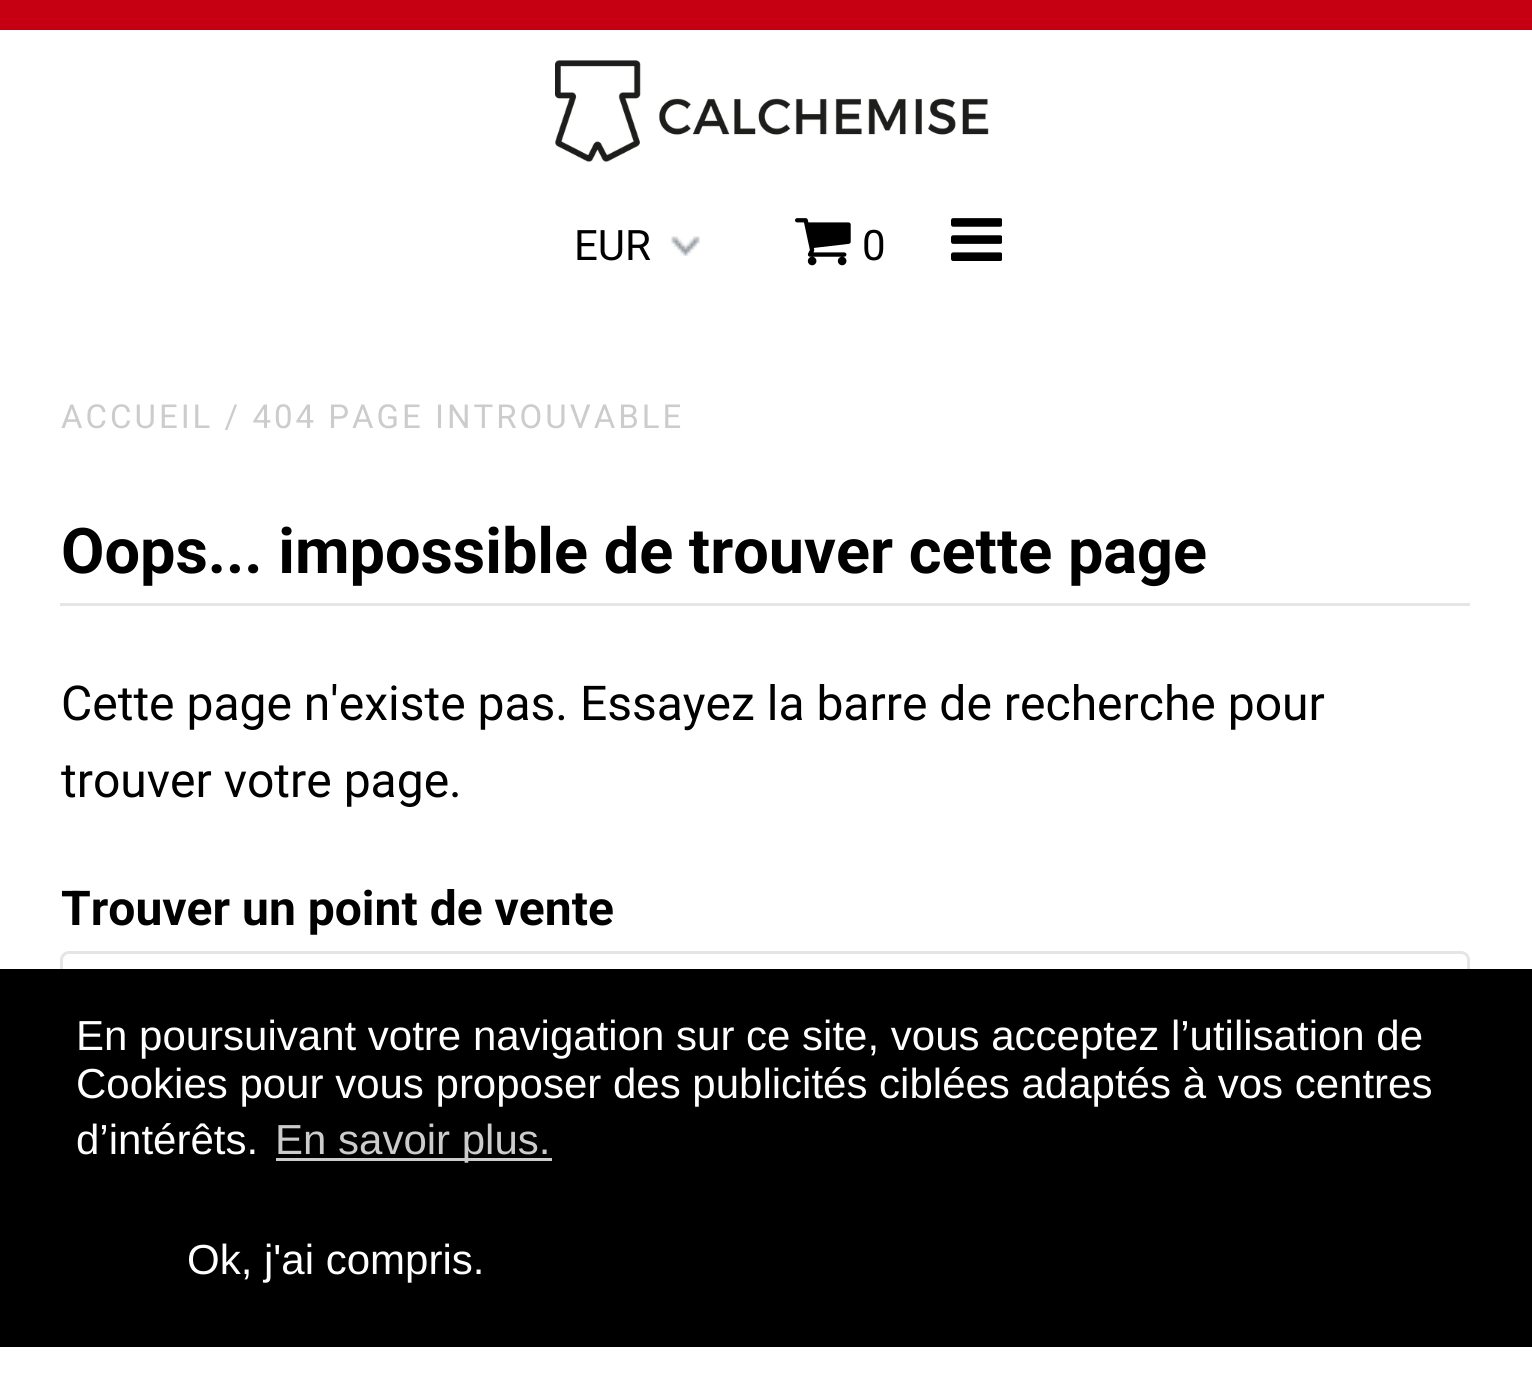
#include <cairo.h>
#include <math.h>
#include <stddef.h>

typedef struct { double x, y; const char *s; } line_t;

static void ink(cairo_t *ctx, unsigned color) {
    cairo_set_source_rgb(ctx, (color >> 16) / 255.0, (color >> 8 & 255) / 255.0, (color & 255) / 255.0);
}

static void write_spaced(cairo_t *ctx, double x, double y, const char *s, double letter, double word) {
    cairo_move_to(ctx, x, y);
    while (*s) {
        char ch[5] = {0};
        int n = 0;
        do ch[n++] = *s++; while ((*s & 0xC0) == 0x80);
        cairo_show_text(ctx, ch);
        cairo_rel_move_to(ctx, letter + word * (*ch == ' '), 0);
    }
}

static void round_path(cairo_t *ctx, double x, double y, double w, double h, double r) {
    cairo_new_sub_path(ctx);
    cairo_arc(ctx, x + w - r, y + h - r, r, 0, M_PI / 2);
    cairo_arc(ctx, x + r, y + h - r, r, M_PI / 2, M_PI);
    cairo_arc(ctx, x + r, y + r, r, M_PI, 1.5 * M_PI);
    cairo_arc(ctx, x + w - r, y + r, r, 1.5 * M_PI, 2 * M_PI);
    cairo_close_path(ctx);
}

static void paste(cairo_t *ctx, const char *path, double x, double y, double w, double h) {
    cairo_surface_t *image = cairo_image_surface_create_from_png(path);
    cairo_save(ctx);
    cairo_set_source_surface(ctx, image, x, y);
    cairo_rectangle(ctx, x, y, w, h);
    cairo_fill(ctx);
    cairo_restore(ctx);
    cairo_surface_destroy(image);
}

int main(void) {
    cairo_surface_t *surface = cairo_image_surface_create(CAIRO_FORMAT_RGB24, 1532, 1389);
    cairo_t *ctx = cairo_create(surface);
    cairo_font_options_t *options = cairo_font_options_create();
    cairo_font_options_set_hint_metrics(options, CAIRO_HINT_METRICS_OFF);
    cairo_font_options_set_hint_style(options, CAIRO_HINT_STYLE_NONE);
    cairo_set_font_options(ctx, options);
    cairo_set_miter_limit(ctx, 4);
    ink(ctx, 0xFFFFFF);
    cairo_paint(ctx);
    ink(ctx, 0xC60012);
    cairo_rectangle(ctx, 0, 0, 1532, 30);
    cairo_fill(ctx);
    paste(ctx, "media/1.png", 555, 60, 434, 102);
    paste(ctx, "media/2.png", 671, 236, 29, 20);
    cairo_select_font_face(ctx, "Roboto", CAIRO_FONT_SLANT_NORMAL, CAIRO_FONT_WEIGHT_NORMAL);
    cairo_set_font_size(ctx, 42);
    ink(ctx, 0x000000);
    cairo_move_to(ctx, 574, 260);
    cairo_show_text(ctx, "EUR");
    paste(ctx, "media/3.png", 795, 218, 56, 48);
    cairo_move_to(ctx, 862, 260);
    cairo_show_text(ctx, "0");
    paste(ctx, "media/4.png", 951, 218, 51, 43);
    cairo_set_font_size(ctx, 33);
    ink(ctx, 0xCCCCCC);
    write_spaced(ctx, 61, 428, "ACCUEIL / 404 PAGE INTROUVABLE", 3, 0);
    ink(ctx, 0xE5E5E5);
    cairo_rectangle(ctx, 60, 603, 1410, 3);
    cairo_fill(ctx);
    cairo_select_font_face(ctx, "Roboto", CAIRO_FONT_SLANT_NORMAL, CAIRO_FONT_WEIGHT_BOLD);
    cairo_set_font_size(ctx, 63);
    ink(ctx, 0x000000);
    cairo_move_to(ctx, 61, 573);
    cairo_show_text(ctx, "Oops... impossible de trouver cette page");
    cairo_select_font_face(ctx, "Roboto", CAIRO_FONT_SLANT_NORMAL, CAIRO_FONT_WEIGHT_NORMAL);
    cairo_set_font_size(ctx, 48);
    cairo_move_to(ctx, 61, 720);
    cairo_show_text(ctx, "Cette page n'existe pas. Essayez la barre de recherche pour");
    cairo_move_to(ctx, 61, 797);
    cairo_show_text(ctx, "trouver votre page.");
    cairo_select_font_face(ctx, "Roboto", CAIRO_FONT_SLANT_NORMAL, CAIRO_FONT_WEIGHT_BOLD);
    cairo_move_to(ctx, 61, 925);
    cairo_show_text(ctx, "Trouver un point de vente");
    round_path(ctx, 61.5, 952.5, 1407, 117, 7.5);
    ink(ctx, 0xE5E5E5);
    cairo_set_line_width(ctx, 3);
    cairo_stroke(ctx);
    ink(ctx, 0x000000);
    cairo_rectangle(ctx, 0, 969, 1532, 378);
    cairo_fill(ctx);
    cairo_select_font_face(ctx, "Liberation Sans", CAIRO_FONT_SLANT_NORMAL, CAIRO_FONT_WEIGHT_NORMAL);
    cairo_set_font_size(ctx, 42);
    ink(ctx, 0xFFFFFF);
    {
        static const line_t items[] = {
            {76, 1050, "En poursuivant votre navigation sur ce site, vous acceptez l’utilisation de"},
            {76, 1098, "Cookies pour vous proposer des publicités ciblées adaptés à vos centres"},
            {76, 1154, "d’intérêts."},
        };
        for (size_t i = 0; i < sizeof items / sizeof *items; i++) {
            cairo_move_to(ctx, items[i].x, items[i].y);
            cairo_show_text(ctx, items[i].s);
        }
    }
    ink(ctx, 0xCCCCCC);
    cairo_rectangle(ctx, 276, 1158, 276, 3);
    cairo_fill(ctx);
    cairo_move_to(ctx, 275, 1154);
    cairo_show_text(ctx, "En savoir plus.");
    ink(ctx, 0xFFFFFF);
    cairo_move_to(ctx, 187, 1274);
    cairo_show_text(ctx, "Ok, j'ai compris.");
    cairo_surface_write_to_png(surface, "image.png");
    cairo_font_options_destroy(options);
    cairo_destroy(ctx);
    cairo_surface_destroy(surface);
    return 0;
}
